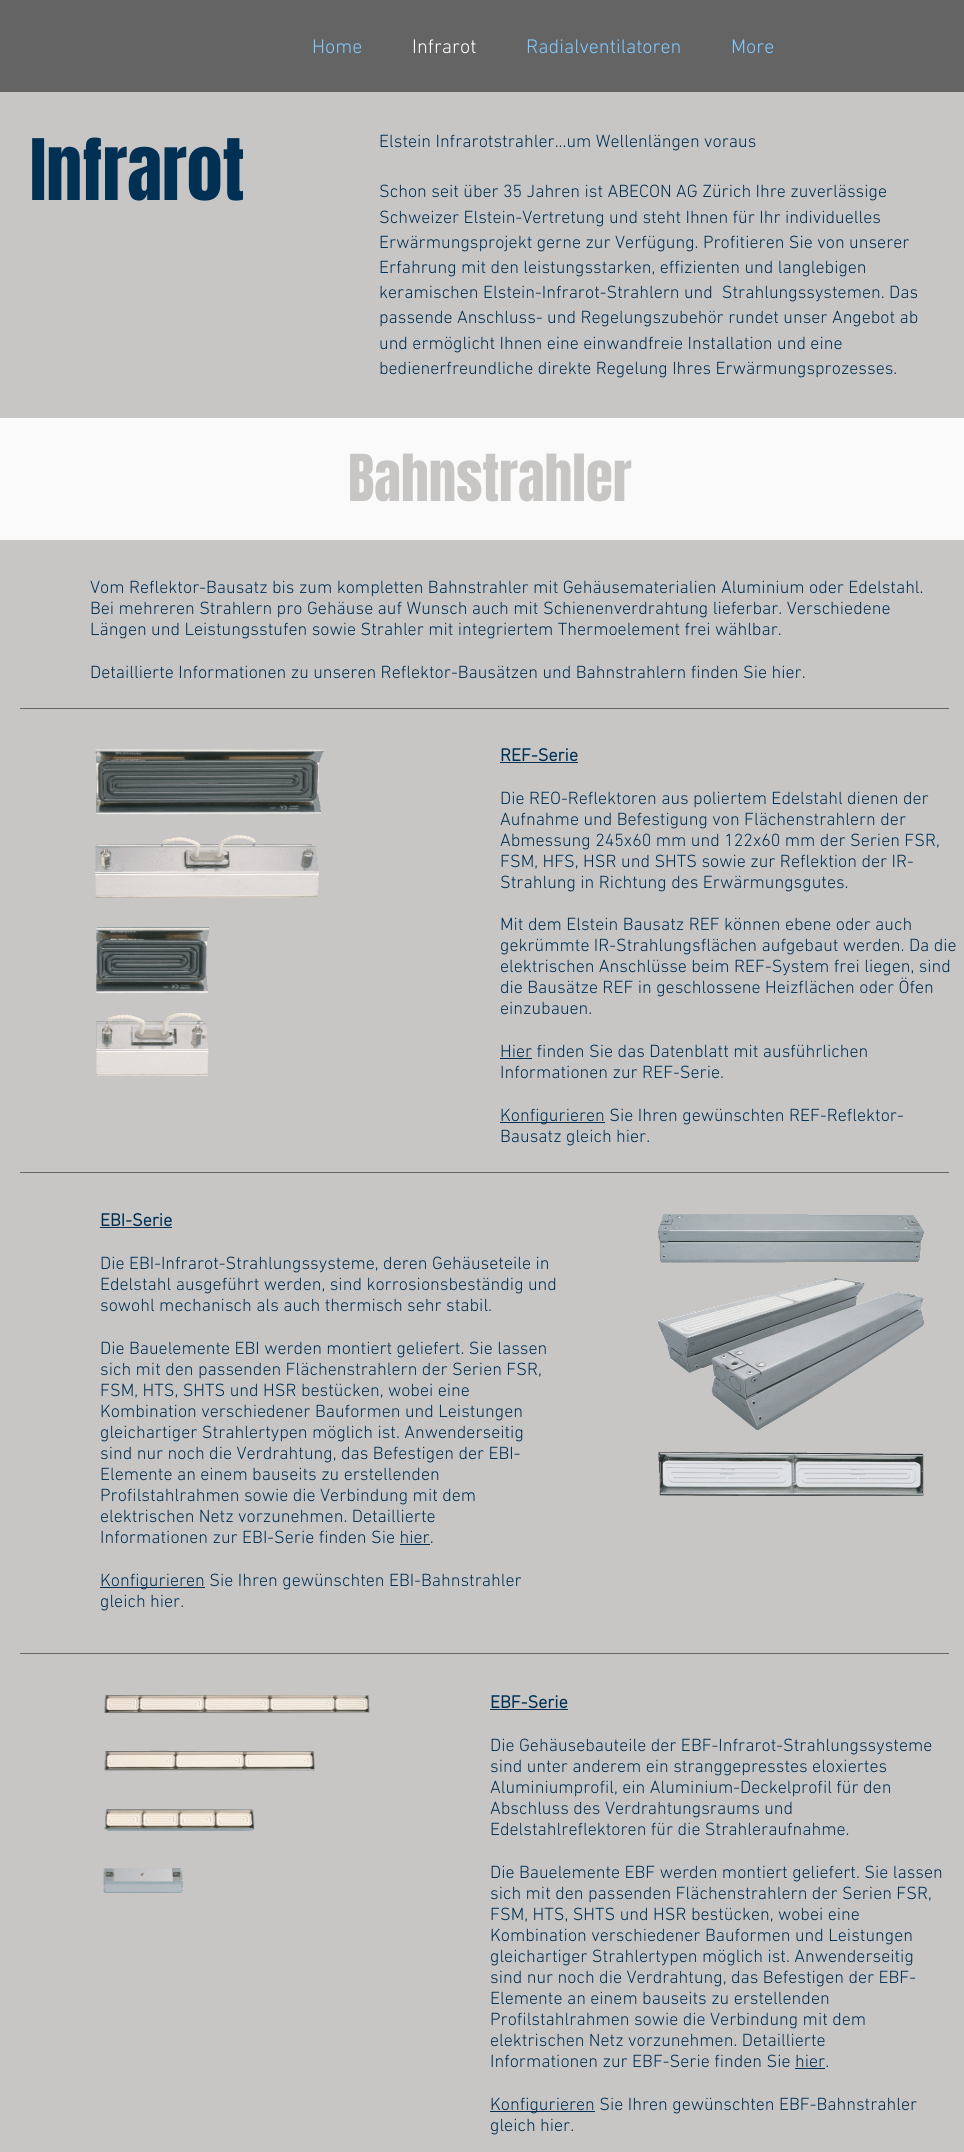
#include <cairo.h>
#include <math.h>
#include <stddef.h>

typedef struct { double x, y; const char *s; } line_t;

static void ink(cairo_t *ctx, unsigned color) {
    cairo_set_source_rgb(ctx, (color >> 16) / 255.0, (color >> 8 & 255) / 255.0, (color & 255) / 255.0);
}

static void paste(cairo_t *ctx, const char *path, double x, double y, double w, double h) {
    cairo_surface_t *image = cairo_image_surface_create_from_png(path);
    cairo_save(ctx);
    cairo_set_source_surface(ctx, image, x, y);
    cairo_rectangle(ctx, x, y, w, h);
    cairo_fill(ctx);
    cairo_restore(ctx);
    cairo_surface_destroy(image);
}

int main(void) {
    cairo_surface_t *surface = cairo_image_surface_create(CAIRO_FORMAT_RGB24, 964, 2152);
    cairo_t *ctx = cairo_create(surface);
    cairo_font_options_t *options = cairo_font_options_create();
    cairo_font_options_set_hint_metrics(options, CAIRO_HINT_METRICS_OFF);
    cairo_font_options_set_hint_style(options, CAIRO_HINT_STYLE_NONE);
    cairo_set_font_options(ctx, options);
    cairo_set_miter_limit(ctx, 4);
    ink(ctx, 0xC8C5C5);
    cairo_paint(ctx);
    ink(ctx, 0x656464);
    cairo_rectangle(ctx, 0, 0, 964, 92);
    cairo_fill(ctx);
    cairo_select_font_face(ctx, "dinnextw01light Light", CAIRO_FONT_SLANT_NORMAL, CAIRO_FONT_WEIGHT_NORMAL);
    cairo_set_font_size(ctx, 20);
    ink(ctx, 0x7FC9FF);
    cairo_move_to(ctx, 312, 53);
    cairo_show_text(ctx, "Home");
    ink(ctx, 0xFFFFFF);
    cairo_move_to(ctx, 412, 53);
    cairo_show_text(ctx, "Infrarot");
    ink(ctx, 0x7FC9FF);
    cairo_move_to(ctx, 526, 53);
    cairo_show_text(ctx, "Radialventilatoren");
    cairo_move_to(ctx, 731, 53);
    cairo_show_text(ctx, "More");
    cairo_select_font_face(ctx, "Anton", CAIRO_FONT_SLANT_NORMAL, CAIRO_FONT_WEIGHT_NORMAL);
    cairo_set_font_size(ctx, 72);
    ink(ctx, 0x003154);
    cairo_move_to(ctx, 30, 200);
    cairo_show_text(ctx, "Infrarot");
    cairo_select_font_face(ctx, "dinnextw01light Light", CAIRO_FONT_SLANT_NORMAL, CAIRO_FONT_WEIGHT_NORMAL);
    cairo_set_font_size(ctx, 18);
    {
        static const line_t items[] = {
            {379, 147, "Elstein Infrarotstrahler...um Wellenlängen voraus"},
            {379, 197, "Schon seit über 35 Jahren ist ABECON AG Zürich Ihre zuverlässige"},
            {379, 223, "Schweizer Elstein-Vertretung und steht Ihnen für Ihr individuelles"},
            {379, 248, "Erwärmungsprojekt gerne zur Verfügung. Profitieren Sie von unserer"},
            {379, 273, "Erfahrung mit den leistungsstarken, effizienten und langlebigen"},
            {379, 298, "keramischen Elstein-Infrarot-Strahlern und  Strahlungssystemen. Das"},
            {379, 323, "passende Anschluss- und Regelungszubehör rundet unser Angebot ab"},
            {379, 349, "und ermöglicht Ihnen eine einwandfreie Installation und eine"},
            {379, 374, "bedienerfreundliche direkte Regelung Ihres Erwärmungsprozesses."},
        };
        for (size_t i = 0; i < sizeof items / sizeof *items; i++) {
            cairo_move_to(ctx, items[i].x, items[i].y);
            cairo_show_text(ctx, items[i].s);
        }
    }
    ink(ctx, 0xFAFAFA);
    cairo_rectangle(ctx, 0, 418, 964, 122);
    cairo_fill(ctx);
    cairo_select_font_face(ctx, "Anton", CAIRO_FONT_SLANT_NORMAL, CAIRO_FONT_WEIGHT_NORMAL);
    cairo_set_font_size(ctx, 55);
    ink(ctx, 0xC8C5C5);
    cairo_move_to(ctx, 348, 501);
    cairo_show_text(ctx, "Bahnstrahler");
    cairo_select_font_face(ctx, "dinnextw01light Light", CAIRO_FONT_SLANT_NORMAL, CAIRO_FONT_WEIGHT_NORMAL);
    cairo_set_font_size(ctx, 18);
    ink(ctx, 0x003154);
    {
        static const line_t items[] = {
            {90, 593, "Vom Reflektor-Bausatz bis zum kompletten Bahnstrahler mit Gehäusematerialien Aluminium oder Edelstahl."},
            {90, 614, "Bei mehreren Strahlern pro Gehäuse auf Wunsch auch mit Schienenverdrahtung lieferbar. Verschiedene"},
            {90, 635, "Längen und Leistungsstufen sowie Strahler mit integriertem Thermoelement frei wählbar."},
            {90, 678, "Detaillierte Informationen zu unseren Reflektor-Bausätzen und Bahnstrahlern finden Sie hier."},
        };
        for (size_t i = 0; i < sizeof items / sizeof *items; i++) {
            cairo_move_to(ctx, items[i].x, items[i].y);
            cairo_show_text(ctx, items[i].s);
        }
    }
    ink(ctx, 0x666666);
    cairo_rectangle(ctx, 20, 708, 929, 1);
    cairo_fill(ctx);
    paste(ctx, "media/1.png", 95, 749, 229, 327);
    cairo_select_font_face(ctx, "dinnextw01light", CAIRO_FONT_SLANT_NORMAL, CAIRO_FONT_WEIGHT_BOLD);
    ink(ctx, 0x003154);
    cairo_move_to(ctx, 500, 761);
    cairo_show_text(ctx, "REF-Serie");
    cairo_rectangle(ctx, 500, 762, 78, 1);
    cairo_fill(ctx);
    cairo_select_font_face(ctx, "dinnextw01light Light", CAIRO_FONT_SLANT_NORMAL, CAIRO_FONT_WEIGHT_NORMAL);
    {
        static const line_t items[] = {
            {500, 804, "Die REO-Reflektoren aus poliertem Edelstahl dienen der"},
            {500, 825, "Aufnahme und Befestigung von Flächenstrahlern der"},
            {500, 846, "Abmessung 245x60 mm und 122x60 mm der Serien FSR,"},
            {500, 867, "FSM, HFS, HSR und SHTS sowie zur Reflektion der IR-"},
            {500, 888, "Strahlung in Richtung des Erwärmungsgutes."},
            {500, 930, "Mit dem Elstein Bausatz REF können ebene oder auch"},
            {500, 951, "gekrümmte IR-Strahlungsflächen aufgebaut werden. Da die"},
            {500, 972, "elektrischen Anschlüsse beim REF-System frei liegen, sind"},
            {500, 993, "die Bausätze REF in geschlossene Heizflächen oder Öfen"},
            {500, 1014, "einzubauen."},
            {500, 1057, "Hier finden Sie das Datenblatt mit ausführlichen"},
        };
        for (size_t i = 0; i < sizeof items / sizeof *items; i++) {
            cairo_move_to(ctx, items[i].x, items[i].y);
            cairo_show_text(ctx, items[i].s);
        }
    }
    cairo_rectangle(ctx, 500, 1058, 32, 1);
    cairo_fill(ctx);
    cairo_move_to(ctx, 500, 1078);
    cairo_show_text(ctx, "Informationen zur REF-Serie.");
    cairo_rectangle(ctx, 500, 1122, 105, 1);
    cairo_fill(ctx);
    cairo_move_to(ctx, 500, 1121);
    cairo_show_text(ctx, "Konfigurieren Sie Ihren gewünschten REF-Reflektor-");
    cairo_move_to(ctx, 500, 1142);
    cairo_show_text(ctx, "Bausatz gleich hier.");
    ink(ctx, 0x666666);
    cairo_rectangle(ctx, 20, 1172, 929, 1);
    cairo_fill(ctx);
    cairo_select_font_face(ctx, "dinnextw01light", CAIRO_FONT_SLANT_NORMAL, CAIRO_FONT_WEIGHT_BOLD);
    ink(ctx, 0x003154);
    cairo_move_to(ctx, 100, 1226);
    cairo_show_text(ctx, "EBI-Serie");
    cairo_rectangle(ctx, 100, 1227, 72, 1);
    cairo_fill(ctx);
    cairo_select_font_face(ctx, "dinnextw01light Light", CAIRO_FONT_SLANT_NORMAL, CAIRO_FONT_WEIGHT_NORMAL);
    {
        static const line_t items[] = {
            {100, 1269, "Die EBI-Infrarot-Strahlungssysteme, deren Gehäuseteile in"},
            {100, 1290, "Edelstahl ausgeführt werden, sind korrosionsbeständig und"},
            {100, 1311, "sowohl mechanisch als auch thermisch sehr stabil."},
            {100, 1354, "Die Bauelemente EBI werden montiert geliefert. Sie lassen"},
            {100, 1375, "sich mit den passenden Flächenstrahlern der Serien FSR,"},
            {100, 1396, "FSM, HTS, SHTS und HSR bestücken, wobei eine"},
            {100, 1417, "Kombination verschiedener Bauformen und Leistungen"},
            {100, 1438, "gleichartiger Strahlertypen möglich ist. Anwenderseitig"},
            {100, 1459, "sind nur noch die Verdrahtung, das Befestigen der EBI-"},
            {100, 1480, "Elemente an einem bauseits zu erstellenden"},
            {100, 1501, "Profilstahlrahmen sowie die Verbindung mit dem"},
            {100, 1522, "elektrischen Netz vorzunehmen. Detaillierte"},
            {100, 1543, "Informationen zur EBI-Serie finden Sie hier."},
        };
        for (size_t i = 0; i < sizeof items / sizeof *items; i++) {
            cairo_move_to(ctx, items[i].x, items[i].y);
            cairo_show_text(ctx, items[i].s);
        }
    }
    cairo_rectangle(ctx, 400, 1544, 30, 1);
    cairo_fill(ctx);
    cairo_rectangle(ctx, 100, 1587, 105, 1);
    cairo_fill(ctx);
    cairo_move_to(ctx, 100, 1586);
    cairo_show_text(ctx, "Konfigurieren Sie Ihren gewünschten EBI-Bahnstrahler");
    cairo_move_to(ctx, 100, 1607);
    cairo_show_text(ctx, "gleich hier.");
    paste(ctx, "media/2.png", 657, 1214, 268, 282);
    ink(ctx, 0x666666);
    cairo_rectangle(ctx, 20, 1653, 929, 1);
    cairo_fill(ctx);
    paste(ctx, "media/3.png", 103, 1695, 267, 198);
    cairo_select_font_face(ctx, "dinnextw01light", CAIRO_FONT_SLANT_NORMAL, CAIRO_FONT_WEIGHT_BOLD);
    ink(ctx, 0x003154);
    cairo_move_to(ctx, 490, 1708);
    cairo_show_text(ctx, "EBF-Serie");
    cairo_rectangle(ctx, 490, 1709, 78, 1);
    cairo_fill(ctx);
    cairo_select_font_face(ctx, "dinnextw01light Light", CAIRO_FONT_SLANT_NORMAL, CAIRO_FONT_WEIGHT_NORMAL);
    {
        static const line_t items[] = {
            {490, 1751, "Die Gehäusebauteile der EBF-Infrarot-Strahlungssysteme"},
            {490, 1772, "sind unter anderem ein stranggepresstes eloxiertes"},
            {490, 1793, "Aluminiumprofil, ein Aluminium-Deckelprofil für den"},
            {490, 1814, "Abschluss des Verdrahtungsraums und"},
            {490, 1835, "Edelstahlreflektoren für die Strahleraufnahme."},
            {490, 1878, "Die Bauelemente EBF werden montiert geliefert. Sie lassen"},
            {490, 1899, "sich mit den passenden Flächenstrahlern der Serien FSR,"},
            {490, 1920, "FSM, HTS, SHTS und HSR bestücken, wobei eine"},
            {490, 1941, "Kombination verschiedener Bauformen und Leistungen"},
            {490, 1962, "gleichartiger Strahlertypen möglich ist. Anwenderseitig"},
            {490, 1983, "sind nur noch die Verdrahtung, das Befestigen der EBF-"},
            {490, 2004, "Elemente an einem bauseits zu erstellenden"},
            {490, 2025, "Profilstahlrahmen sowie die Verbindung mit dem"},
            {490, 2046, "elektrischen Netz vorzunehmen. Detaillierte"},
            {490, 2067, "Informationen zur EBF-Serie finden Sie hier."},
        };
        for (size_t i = 0; i < sizeof items / sizeof *items; i++) {
            cairo_move_to(ctx, items[i].x, items[i].y);
            cairo_show_text(ctx, items[i].s);
        }
    }
    cairo_rectangle(ctx, 795, 2068, 30, 1);
    cairo_fill(ctx);
    cairo_rectangle(ctx, 490, 2111, 105, 1);
    cairo_fill(ctx);
    cairo_move_to(ctx, 490, 2110);
    cairo_show_text(ctx, "Konfigurieren Sie Ihren gewünschten EBF-Bahnstrahler");
    cairo_move_to(ctx, 490, 2131);
    cairo_show_text(ctx, "gleich hier.");
    cairo_surface_write_to_png(surface, "image.png");
    cairo_font_options_destroy(options);
    cairo_destroy(ctx);
    cairo_surface_destroy(surface);
    return 0;
}
